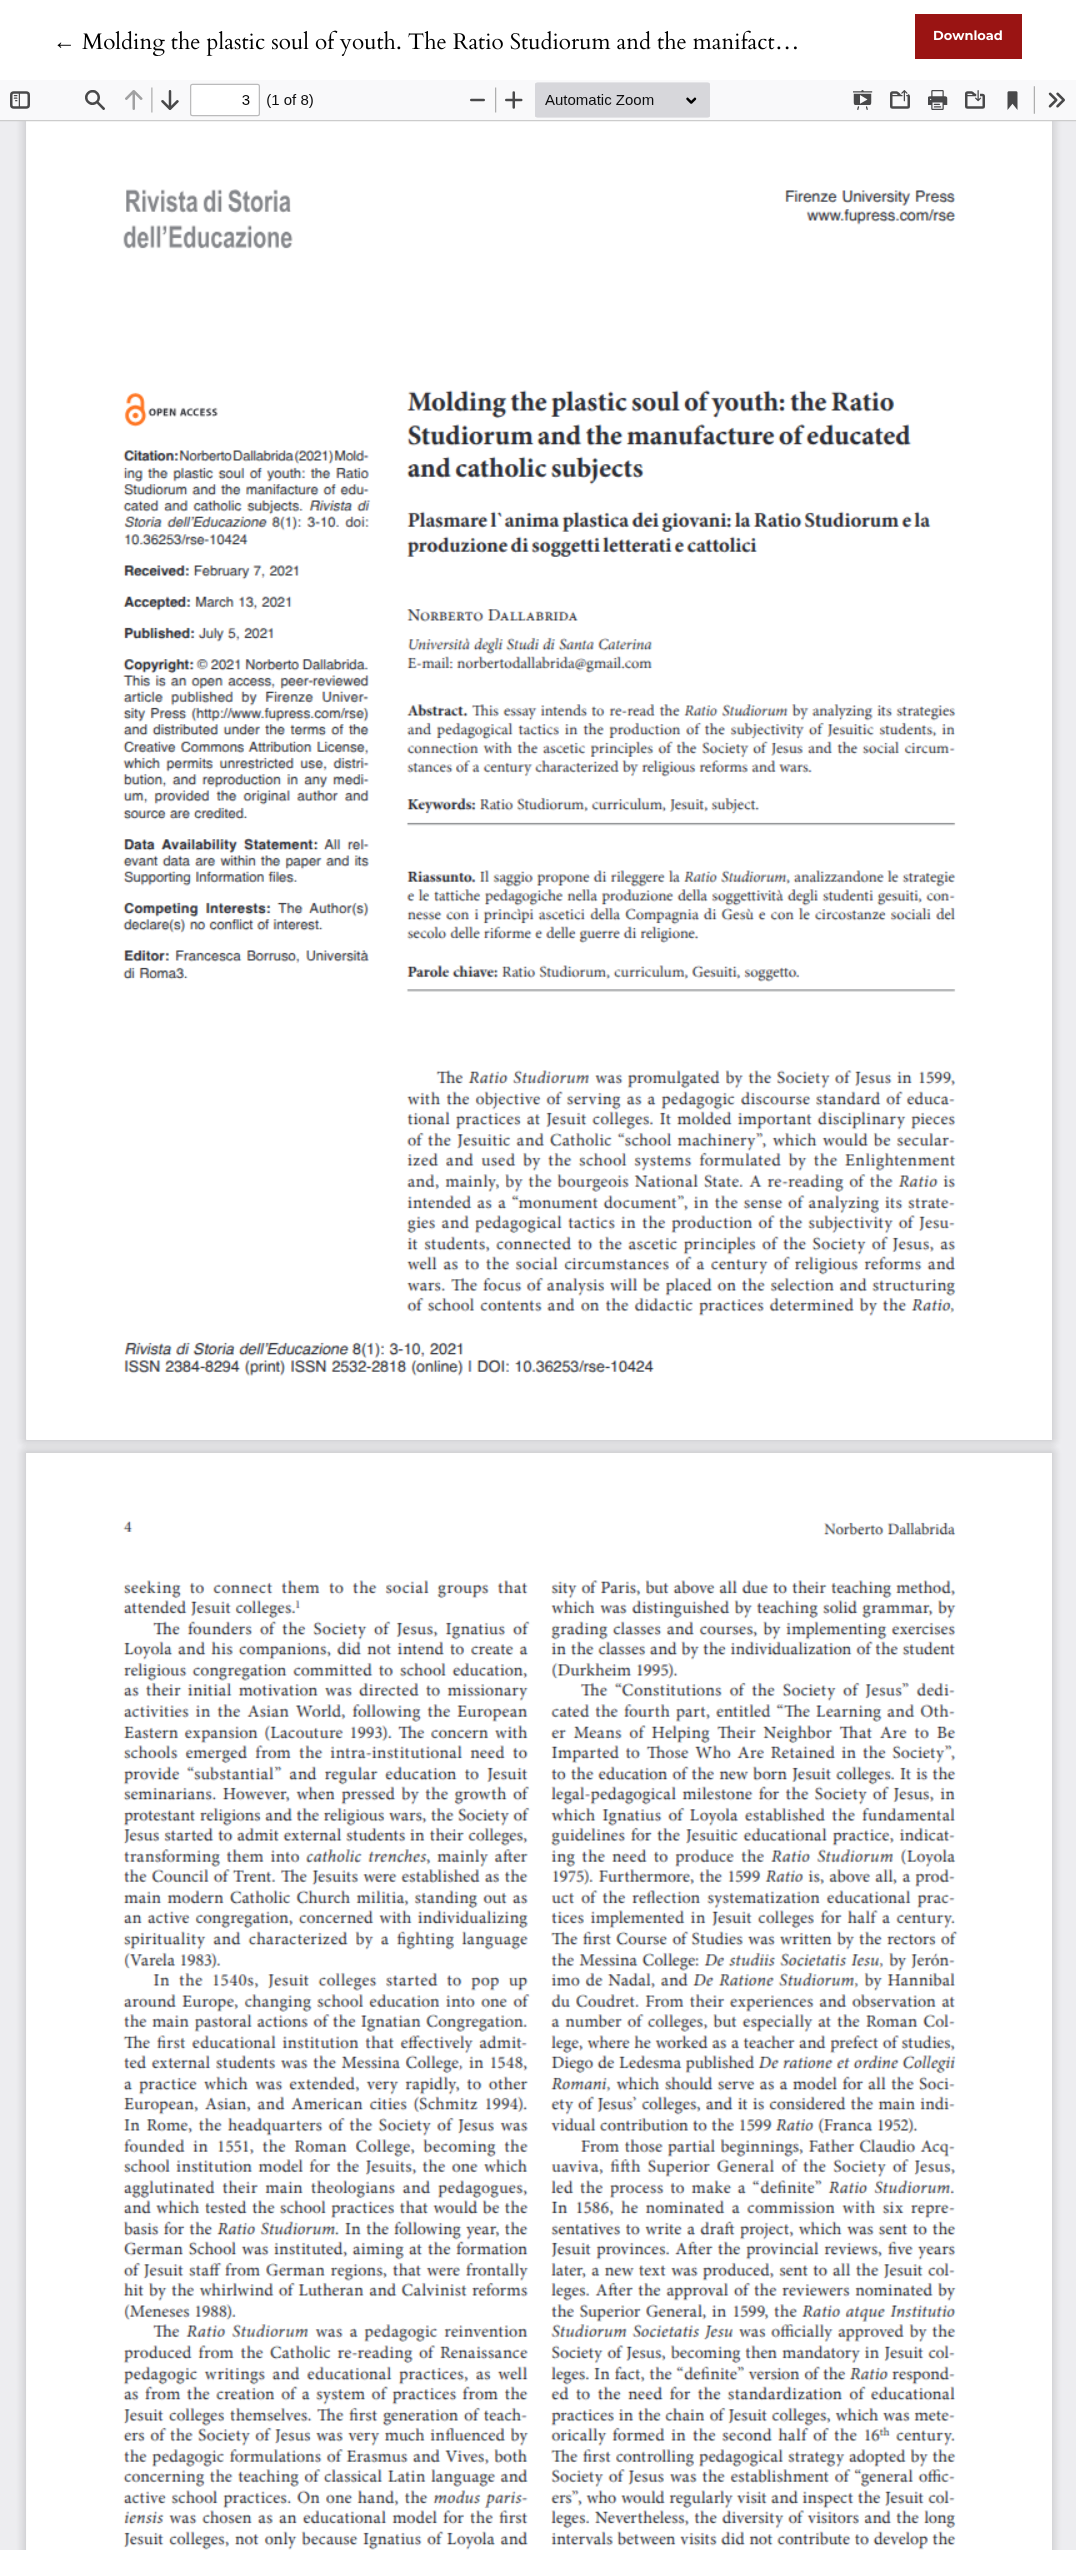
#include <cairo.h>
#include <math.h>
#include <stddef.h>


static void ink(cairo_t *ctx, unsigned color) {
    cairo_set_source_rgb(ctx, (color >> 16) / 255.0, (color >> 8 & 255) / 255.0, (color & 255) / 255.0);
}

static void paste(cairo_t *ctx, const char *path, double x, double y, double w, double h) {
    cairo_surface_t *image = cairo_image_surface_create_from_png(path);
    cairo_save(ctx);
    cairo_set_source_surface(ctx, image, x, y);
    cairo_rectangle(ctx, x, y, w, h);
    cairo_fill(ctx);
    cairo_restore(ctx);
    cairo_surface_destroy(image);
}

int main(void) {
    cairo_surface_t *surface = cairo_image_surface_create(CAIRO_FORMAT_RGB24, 1076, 2550);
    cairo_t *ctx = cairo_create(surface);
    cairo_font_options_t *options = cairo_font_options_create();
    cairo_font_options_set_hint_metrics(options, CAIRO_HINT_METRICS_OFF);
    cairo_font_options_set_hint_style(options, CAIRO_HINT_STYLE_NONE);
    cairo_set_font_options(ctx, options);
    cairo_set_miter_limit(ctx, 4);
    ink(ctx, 0xFFFFFF);
    cairo_paint(ctx);
    cairo_select_font_face(ctx, "Liberation Serif", CAIRO_FONT_SLANT_NORMAL, CAIRO_FONT_WEIGHT_NORMAL);
    cairo_set_font_size(ctx, 22.5);
    ink(ctx, 0x000000);
    cairo_move_to(ctx, 53, 49);
    cairo_show_text(ctx, "←");
    cairo_select_font_face(ctx, "Cardo", CAIRO_FONT_SLANT_NORMAL, CAIRO_FONT_WEIGHT_NORMAL);
    cairo_move_to(ctx, 82, 49);
    cairo_show_text(ctx, "Molding the plastic soul of youth. The Ratio Studiorum and the manifact…");
    ink(ctx, 0x9A1413);
    cairo_rectangle(ctx, 915, 14, 107, 45);
    cairo_fill(ctx);
    cairo_select_font_face(ctx, "Montserrat", CAIRO_FONT_SLANT_NORMAL, CAIRO_FONT_WEIGHT_BOLD);
    cairo_set_font_size(ctx, 13);
    ink(ctx, 0xFFFFFF);
    cairo_move_to(ctx, 933, 40);
    cairo_show_text(ctx, "Download");
    paste(ctx, "media/1.png", 0, 80, 1076, 2470);
    cairo_surface_write_to_png(surface, "image.png");
    cairo_font_options_destroy(options);
    cairo_destroy(ctx);
    cairo_surface_destroy(surface);
    return 0;
}
